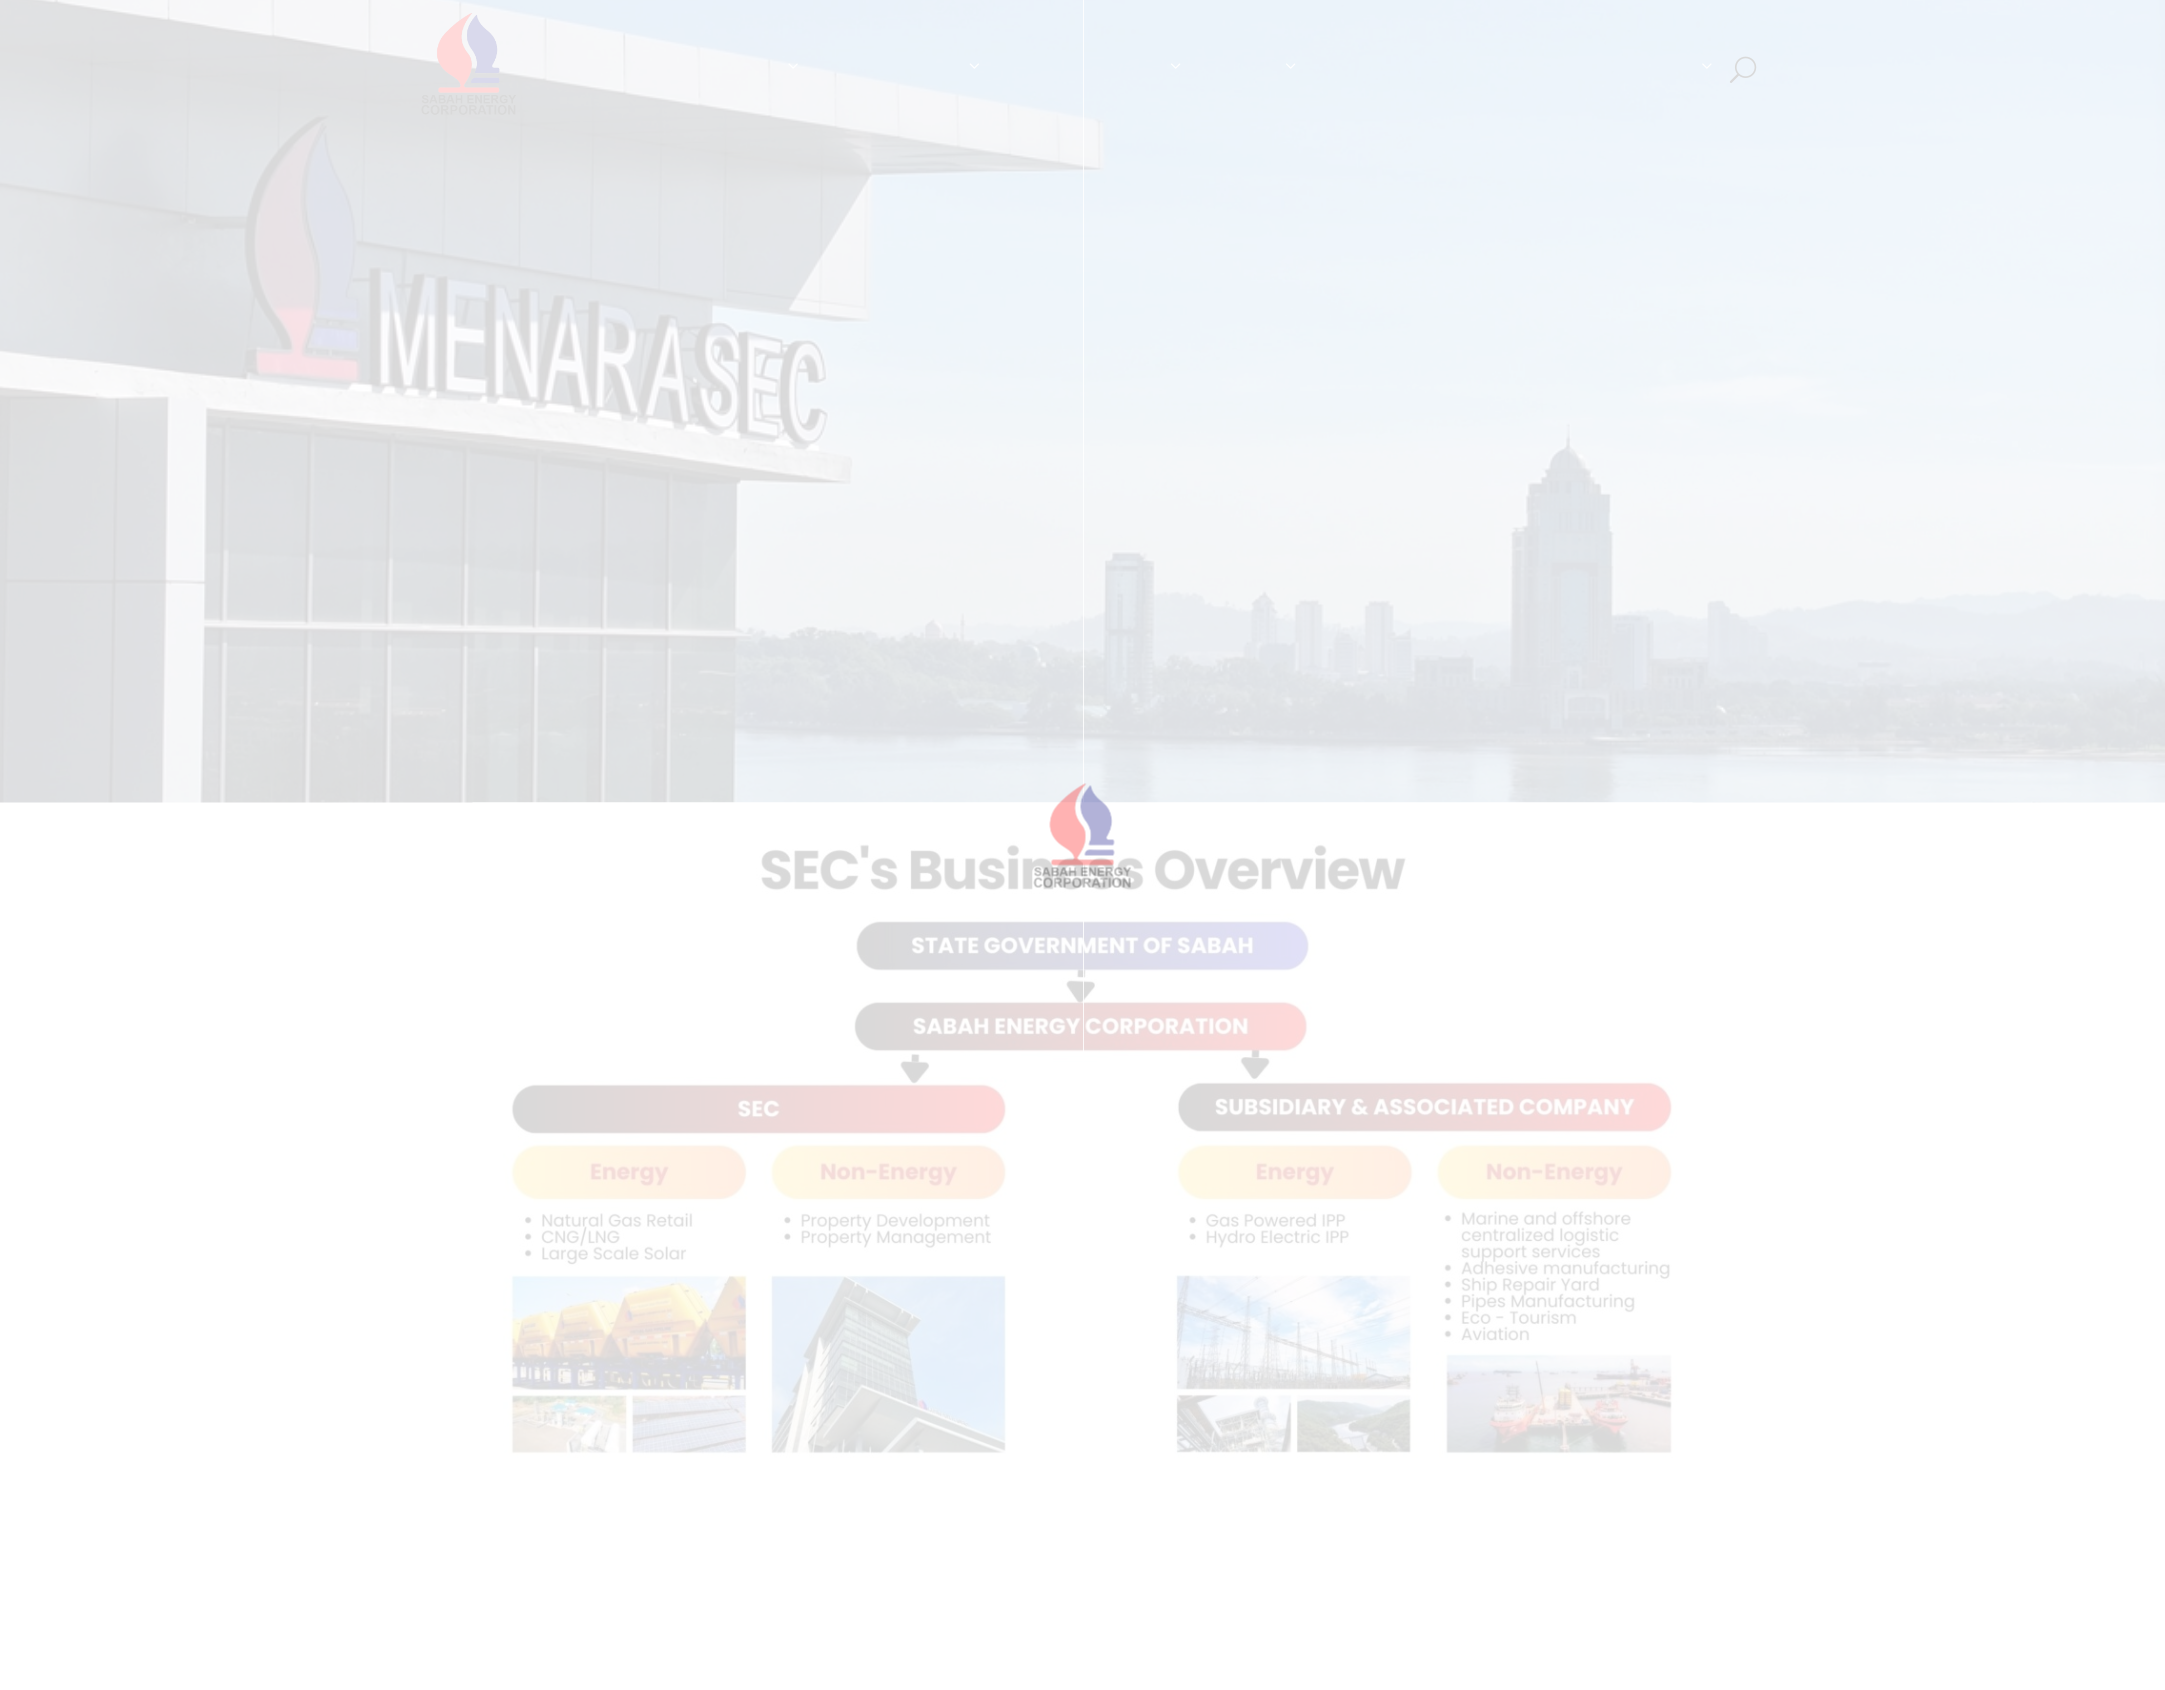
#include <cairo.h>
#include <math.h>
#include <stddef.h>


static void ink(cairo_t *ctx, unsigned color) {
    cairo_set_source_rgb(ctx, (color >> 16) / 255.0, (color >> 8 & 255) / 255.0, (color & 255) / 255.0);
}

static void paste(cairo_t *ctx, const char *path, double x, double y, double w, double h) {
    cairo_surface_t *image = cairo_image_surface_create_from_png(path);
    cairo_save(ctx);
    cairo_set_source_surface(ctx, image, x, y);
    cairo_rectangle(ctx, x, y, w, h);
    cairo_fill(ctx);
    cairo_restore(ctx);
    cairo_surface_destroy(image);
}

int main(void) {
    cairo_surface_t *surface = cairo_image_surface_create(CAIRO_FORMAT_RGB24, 2165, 1690);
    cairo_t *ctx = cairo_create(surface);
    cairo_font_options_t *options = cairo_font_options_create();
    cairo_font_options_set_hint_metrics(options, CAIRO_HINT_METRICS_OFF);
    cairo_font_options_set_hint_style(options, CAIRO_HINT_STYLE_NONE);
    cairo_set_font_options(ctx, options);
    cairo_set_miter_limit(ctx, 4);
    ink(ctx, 0xFFFFFF);
    cairo_paint(ctx);
    paste(ctx, "media/1.png", 0, 0, 2165, 803);
    paste(ctx, "media/2.png", 472, 802, 1221, 657);
    paste(ctx, "media/3.png", 421, 13, 95, 102);
    paste(ctx, "media/4.png", 788, 63, 10, 6);
    paste(ctx, "media/5.png", 969, 63, 10, 6);
    paste(ctx, "media/6.png", 1171, 63, 10, 6);
    paste(ctx, "media/7.png", 1286, 63, 10, 6);
    paste(ctx, "media/8.png", 1702, 63, 10, 6);
    paste(ctx, "media/9.png", 1729, 56, 28, 27);
    cairo_set_source_rgba(ctx, 1, 1, 1, 0.85);
    cairo_rectangle(ctx, 0, 0, 1084, 1459);
    cairo_fill(ctx);
    cairo_rectangle(ctx, 1083, 0, 1082, 1459);
    cairo_fill(ctx);
    paste(ctx, "media/10.png", 1033, 783, 98, 105);
    cairo_surface_write_to_png(surface, "image.png");
    cairo_font_options_destroy(options);
    cairo_destroy(ctx);
    cairo_surface_destroy(surface);
    return 0;
}
